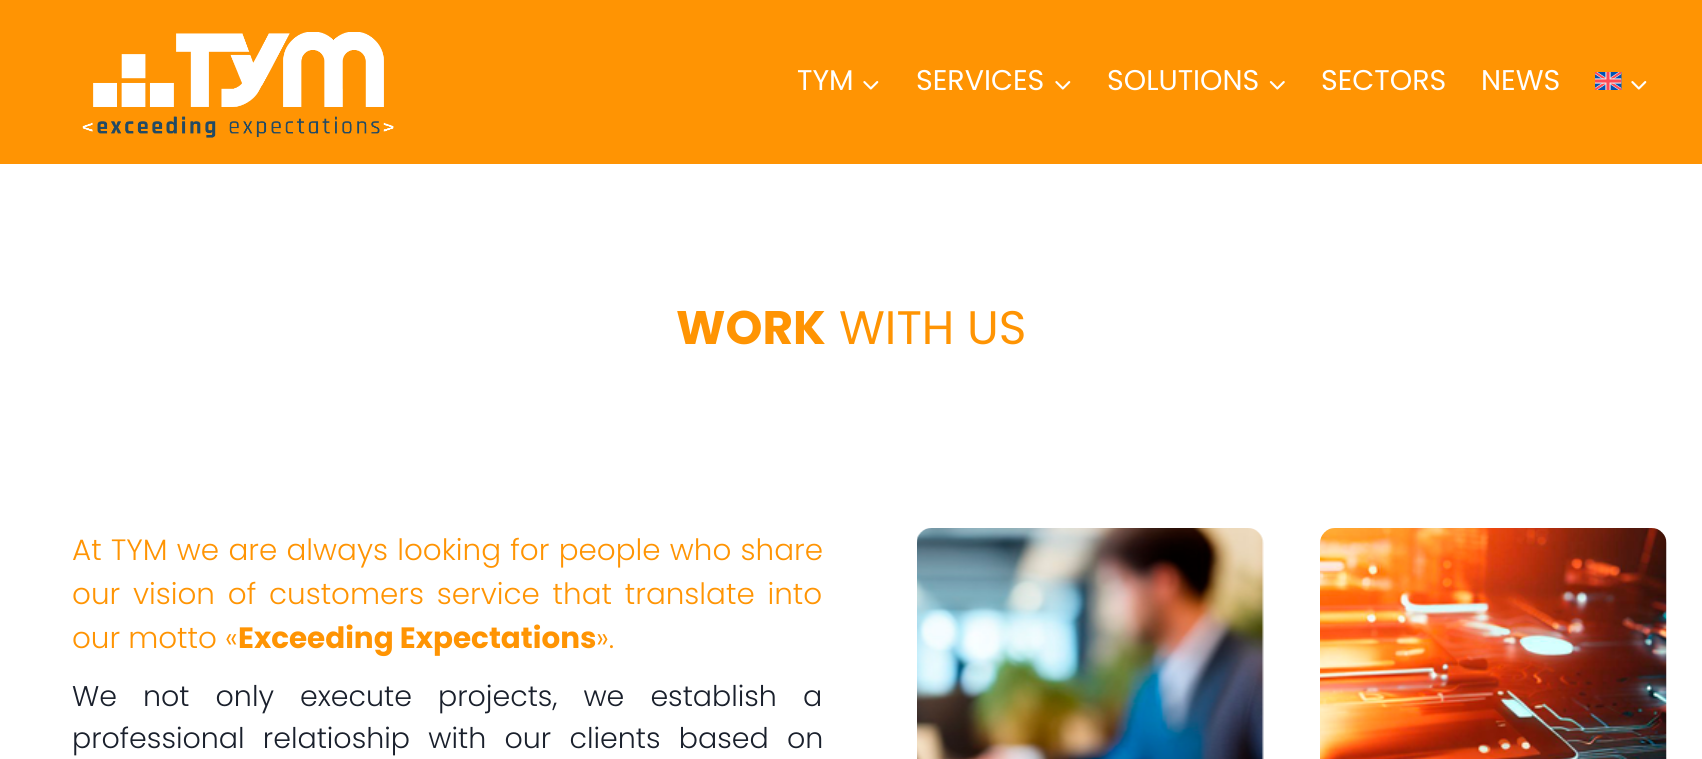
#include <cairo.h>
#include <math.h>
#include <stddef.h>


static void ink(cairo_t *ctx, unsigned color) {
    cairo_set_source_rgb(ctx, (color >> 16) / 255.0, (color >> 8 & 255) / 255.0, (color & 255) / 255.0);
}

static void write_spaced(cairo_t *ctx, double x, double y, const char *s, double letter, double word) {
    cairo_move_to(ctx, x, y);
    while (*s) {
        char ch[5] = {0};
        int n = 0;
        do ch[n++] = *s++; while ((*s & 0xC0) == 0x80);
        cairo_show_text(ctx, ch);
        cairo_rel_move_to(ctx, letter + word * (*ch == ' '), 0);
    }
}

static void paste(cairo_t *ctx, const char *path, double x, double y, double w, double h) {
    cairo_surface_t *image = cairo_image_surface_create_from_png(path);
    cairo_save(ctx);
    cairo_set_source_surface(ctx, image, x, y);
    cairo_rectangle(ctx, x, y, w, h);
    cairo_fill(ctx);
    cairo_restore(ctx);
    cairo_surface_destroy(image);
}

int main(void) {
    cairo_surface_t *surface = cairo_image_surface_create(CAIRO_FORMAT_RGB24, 1702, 759);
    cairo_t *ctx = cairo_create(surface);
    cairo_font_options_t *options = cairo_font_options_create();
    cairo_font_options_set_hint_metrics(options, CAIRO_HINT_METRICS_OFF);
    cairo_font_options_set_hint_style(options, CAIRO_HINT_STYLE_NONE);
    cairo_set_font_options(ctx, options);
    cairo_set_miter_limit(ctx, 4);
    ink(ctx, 0xFFFFFF);
    cairo_paint(ctx);
    ink(ctx, 0xFF9403);
    cairo_rectangle(ctx, 0, 0, 1702, 164);
    cairo_fill(ctx);
    paste(ctx, "media/1.png", 82, 32, 312, 106);
    cairo_select_font_face(ctx, "Poppins", CAIRO_FONT_SLANT_NORMAL, CAIRO_FONT_WEIGHT_NORMAL);
    cairo_set_font_size(ctx, 28.5);
    ink(ctx, 0xFFFFFF);
    cairo_move_to(ctx, 797, 90);
    cairo_show_text(ctx, "TYM");
    paste(ctx, "media/2.png", 863, 81, 16, 9);
    cairo_move_to(ctx, 916, 90);
    cairo_show_text(ctx, "SERVICES");
    paste(ctx, "media/2.png", 1055, 81, 16, 9);
    cairo_move_to(ctx, 1107, 90);
    cairo_show_text(ctx, "SOLUTIONS");
    paste(ctx, "media/3.png", 1269, 81, 16, 9);
    cairo_move_to(ctx, 1321, 90);
    cairo_show_text(ctx, "SECTORS");
    cairo_move_to(ctx, 1481, 90);
    cairo_show_text(ctx, "NEWS");
    paste(ctx, "media/4.png", 1595, 72, 27, 18);
    paste(ctx, "media/2.png", 1631, 81, 16, 9);
    cairo_select_font_face(ctx, "Poppins", CAIRO_FONT_SLANT_NORMAL, CAIRO_FONT_WEIGHT_BOLD);
    cairo_set_font_size(ctx, 47);
    ink(ctx, 0xFF9403);
    cairo_move_to(ctx, 676, 344);
    cairo_show_text(ctx, "WORK");
    cairo_select_font_face(ctx, "Poppins", CAIRO_FONT_SLANT_NORMAL, CAIRO_FONT_WEIGHT_NORMAL);
    cairo_move_to(ctx, 839, 344);
    cairo_show_text(ctx, "WITH US");
    cairo_select_font_face(ctx, "Poppins Light", CAIRO_FONT_SLANT_NORMAL, CAIRO_FONT_WEIGHT_NORMAL);
    cairo_set_font_size(ctx, 29.4);
    write_spaced(ctx, 72, 560, "At TYM we are always looking for people who share", 0, 1.25);
    write_spaced(ctx, 72, 604, "our vision of customers service that translate into", 0, 4.75);
    cairo_move_to(ctx, 72, 648);
    cairo_show_text(ctx, "our motto «");
    cairo_select_font_face(ctx, "Poppins", CAIRO_FONT_SLANT_NORMAL, CAIRO_FONT_WEIGHT_BOLD);
    cairo_move_to(ctx, 238, 648);
    cairo_show_text(ctx, "Exceeding Expectations");
    cairo_select_font_face(ctx, "Poppins Light", CAIRO_FONT_SLANT_NORMAL, CAIRO_FONT_WEIGHT_NORMAL);
    cairo_move_to(ctx, 596, 648);
    cairo_show_text(ctx, "».");
    cairo_set_font_size(ctx, 28.5);
    ink(ctx, 0x1A202C);
    write_spaced(ctx, 72, 706, "We not only execute projects, we establish a", 0, 18.25);
    write_spaced(ctx, 72, 748, "professional relatioship with our clients based on", 0, 10.5);
    paste(ctx, "media/5.png", 917, 528, 347, 231);
    paste(ctx, "media/6.png", 1320, 528, 347, 231);
    cairo_surface_write_to_png(surface, "image.png");
    cairo_font_options_destroy(options);
    cairo_destroy(ctx);
    cairo_surface_destroy(surface);
    return 0;
}
